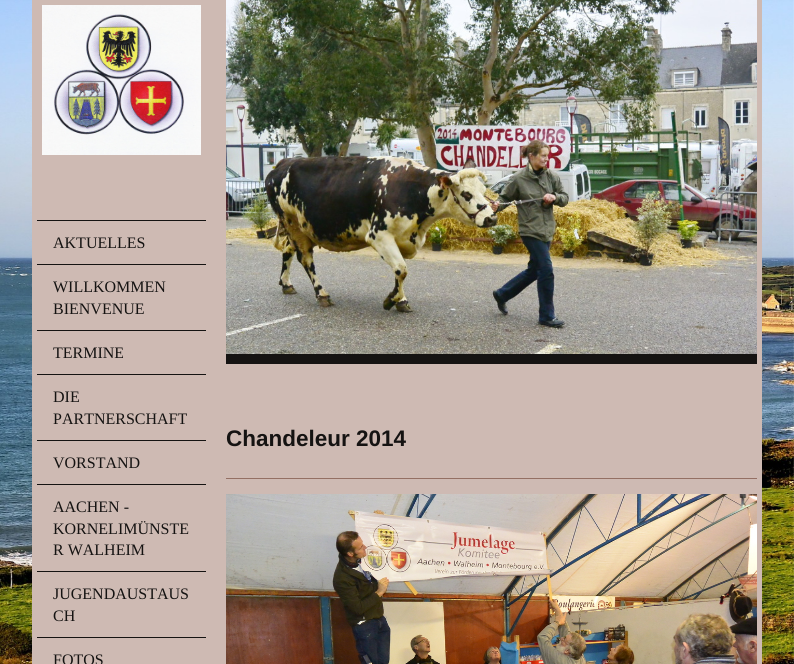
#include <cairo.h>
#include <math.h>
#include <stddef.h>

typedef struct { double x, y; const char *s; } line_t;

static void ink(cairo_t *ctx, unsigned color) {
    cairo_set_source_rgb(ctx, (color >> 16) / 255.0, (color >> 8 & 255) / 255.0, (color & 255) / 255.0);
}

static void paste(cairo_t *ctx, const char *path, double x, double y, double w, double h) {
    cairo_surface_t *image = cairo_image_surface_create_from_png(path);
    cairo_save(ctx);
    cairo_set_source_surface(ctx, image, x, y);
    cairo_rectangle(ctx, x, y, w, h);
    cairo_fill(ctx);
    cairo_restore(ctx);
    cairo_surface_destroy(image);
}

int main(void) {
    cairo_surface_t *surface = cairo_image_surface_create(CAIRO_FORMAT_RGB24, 794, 664);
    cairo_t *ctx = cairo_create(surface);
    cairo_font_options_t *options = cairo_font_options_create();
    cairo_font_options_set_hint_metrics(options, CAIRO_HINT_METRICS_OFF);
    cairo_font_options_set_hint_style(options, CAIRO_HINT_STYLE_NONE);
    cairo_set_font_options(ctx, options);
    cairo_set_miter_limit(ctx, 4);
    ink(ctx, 0xFFFFFF);
    cairo_paint(ctx);
    paste(ctx, "media/1.png", 0, 0, 794, 664);
    ink(ctx, 0xCEBAB3);
    cairo_rectangle(ctx, 32, 0, 730, 664);
    cairo_fill(ctx);
    paste(ctx, "media/2.png", 42, 5, 159, 150);
    ink(ctx, 0x151312);
    cairo_rectangle(ctx, 37, 220, 169, 1);
    cairo_fill(ctx);
    cairo_rectangle(ctx, 37, 264, 169, 1);
    cairo_fill(ctx);
    cairo_select_font_face(ctx, "Liberation Serif", CAIRO_FONT_SLANT_NORMAL, CAIRO_FONT_WEIGHT_NORMAL);
    cairo_set_font_size(ctx, 16);
    cairo_move_to(ctx, 53, 248);
    cairo_show_text(ctx, "AKTUELLES");
    cairo_rectangle(ctx, 37, 330, 169, 1);
    cairo_fill(ctx);
    cairo_move_to(ctx, 53, 292);
    cairo_show_text(ctx, "WILLKOMMEN");
    cairo_move_to(ctx, 53, 314);
    cairo_show_text(ctx, "BIENVENUE");
    cairo_rectangle(ctx, 37, 374, 169, 1);
    cairo_fill(ctx);
    cairo_move_to(ctx, 53, 358);
    cairo_show_text(ctx, "TERMINE");
    cairo_rectangle(ctx, 37, 440, 169, 1);
    cairo_fill(ctx);
    cairo_move_to(ctx, 53, 402);
    cairo_show_text(ctx, "DIE");
    cairo_move_to(ctx, 53, 424);
    cairo_show_text(ctx, "PARTNERSCHAFT");
    cairo_rectangle(ctx, 37, 484, 169, 1);
    cairo_fill(ctx);
    cairo_move_to(ctx, 53, 468);
    cairo_show_text(ctx, "VORSTAND");
    cairo_rectangle(ctx, 37, 571, 169, 1);
    cairo_fill(ctx);
    {
        static const line_t items[] = {
            {53, 512, "AACHEN -"},
            {53, 534, "KORNELIMÜNSTE"},
            {53, 555, "R WALHEIM"},
        };
        for (size_t i = 0; i < sizeof items / sizeof *items; i++) {
            cairo_move_to(ctx, items[i].x, items[i].y);
            cairo_show_text(ctx, items[i].s);
        }
    }
    cairo_rectangle(ctx, 37, 637, 169, 1);
    cairo_fill(ctx);
    {
        static const line_t items[] = {
            {53, 599, "JUGENDAUSTAUS"},
            {53, 621, "CH"},
            {53, 665, "FOTOS"},
        };
        for (size_t i = 0; i < sizeof items / sizeof *items; i++) {
            cairo_move_to(ctx, items[i].x, items[i].y);
            cairo_show_text(ctx, items[i].s);
        }
    }
    cairo_rectangle(ctx, 226, 354, 531, 10);
    cairo_fill(ctx);
    paste(ctx, "media/3.png", 226, 0, 531, 354);
    cairo_select_font_face(ctx, "Liberation Sans", CAIRO_FONT_SLANT_NORMAL, CAIRO_FONT_WEIGHT_BOLD);
    cairo_set_font_size(ctx, 22.5);
    cairo_move_to(ctx, 226, 446);
    cairo_show_text(ctx, "Chandeleur 2014");
    ink(ctx, 0x947064);
    cairo_rectangle(ctx, 226, 478, 531, 1);
    cairo_fill(ctx);
    paste(ctx, "media/4.png", 226, 494, 531, 170);
    cairo_surface_write_to_png(surface, "image.png");
    cairo_font_options_destroy(options);
    cairo_destroy(ctx);
    cairo_surface_destroy(surface);
    return 0;
}
